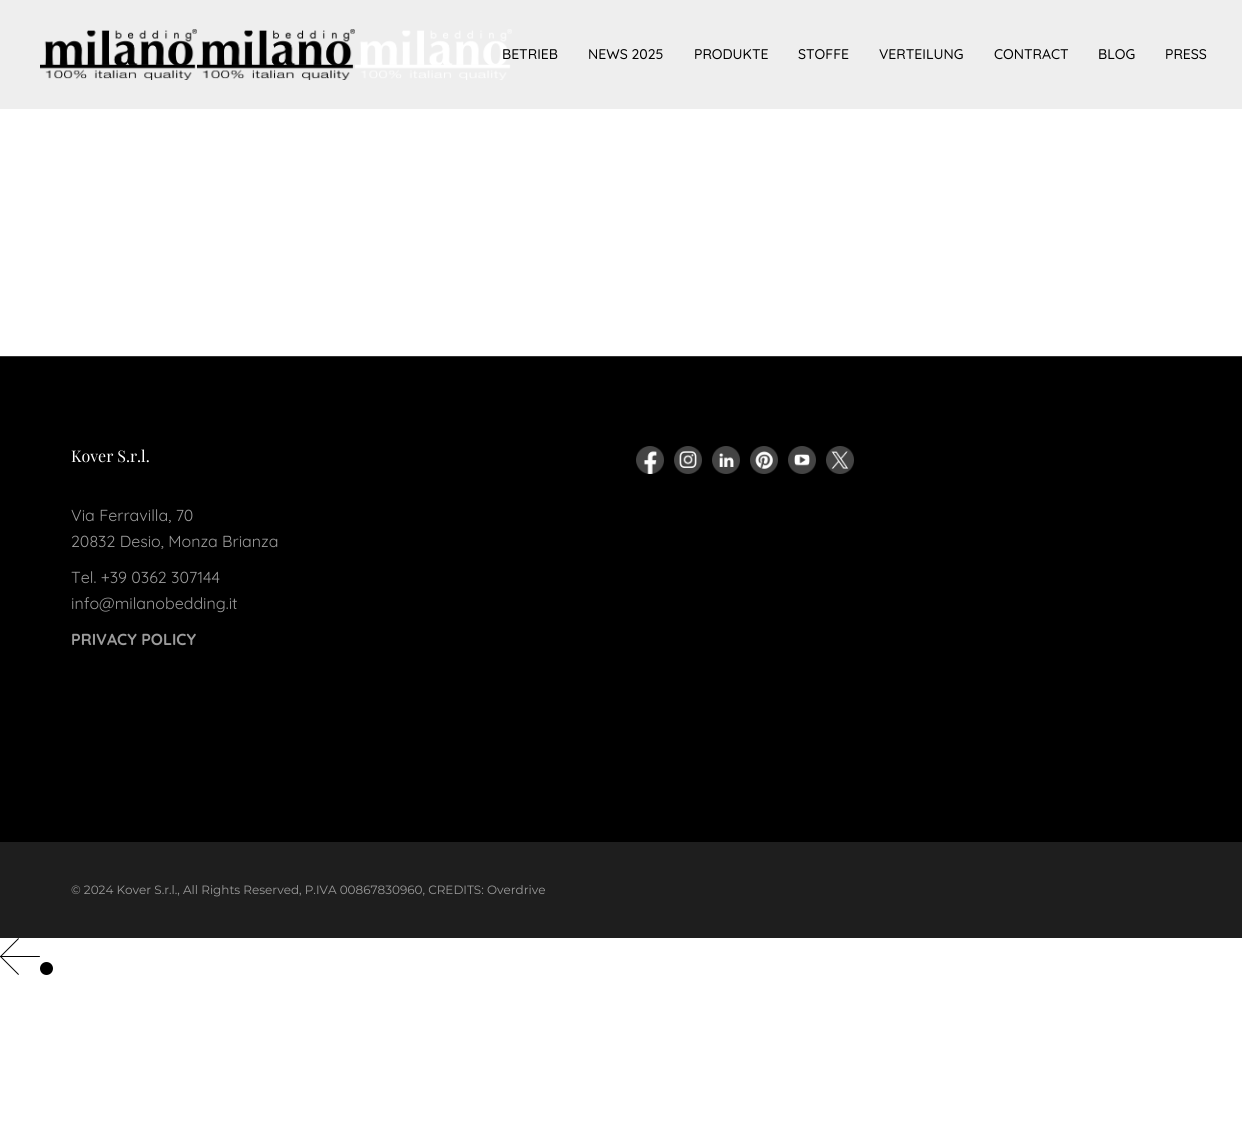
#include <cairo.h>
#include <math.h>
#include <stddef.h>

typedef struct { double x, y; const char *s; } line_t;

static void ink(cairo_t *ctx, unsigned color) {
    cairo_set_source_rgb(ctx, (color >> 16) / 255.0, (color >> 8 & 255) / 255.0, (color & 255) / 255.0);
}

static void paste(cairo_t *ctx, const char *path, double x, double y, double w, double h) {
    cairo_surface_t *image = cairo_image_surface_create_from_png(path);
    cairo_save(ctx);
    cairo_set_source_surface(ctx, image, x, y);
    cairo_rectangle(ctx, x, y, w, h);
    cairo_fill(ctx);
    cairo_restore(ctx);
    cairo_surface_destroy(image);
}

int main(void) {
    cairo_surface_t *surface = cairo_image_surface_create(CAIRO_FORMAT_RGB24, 1242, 1128);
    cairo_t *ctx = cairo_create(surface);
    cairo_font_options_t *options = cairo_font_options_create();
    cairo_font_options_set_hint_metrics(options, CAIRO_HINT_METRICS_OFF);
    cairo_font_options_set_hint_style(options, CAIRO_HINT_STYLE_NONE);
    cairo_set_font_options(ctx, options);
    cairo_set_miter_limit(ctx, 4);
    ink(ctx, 0xFFFFFF);
    cairo_paint(ctx);
    ink(ctx, 0xEEEEEE);
    cairo_rectangle(ctx, 0, 0, 1242, 109);
    cairo_fill(ctx);
    paste(ctx, "media/1.png", 40, 29, 157, 51);
    paste(ctx, "media/2.png", 197, 29, 158, 51);
    paste(ctx, "media/3.png", 355, 29, 157, 51);
    cairo_select_font_face(ctx, "Quicksand Medium", CAIRO_FONT_SLANT_NORMAL, CAIRO_FONT_WEIGHT_NORMAL);
    cairo_set_font_size(ctx, 14);
    ink(ctx, 0x000000);
    {
        static const line_t items[] = {
            {502, 59, "BETRIEB"},
            {588, 59, "NEWS 2025"},
            {694, 59, "PRODUKTE"},
            {798, 59, "STOFFE"},
            {879, 59, "VERTEILUNG"},
            {994, 59, "CONTRACT"},
            {1098, 59, "BLOG"},
            {1165, 59, "PRESS"},
        };
        for (size_t i = 0; i < sizeof items / sizeof *items; i++) {
            cairo_move_to(ctx, items[i].x, items[i].y);
            cairo_show_text(ctx, items[i].s);
        }
    }
    cairo_rectangle(ctx, 0, 357, 1242, 485);
    cairo_fill(ctx);
    ink(ctx, 0x343434);
    cairo_rectangle(ctx, 0, 356, 1242, 1);
    cairo_fill(ctx);
    cairo_select_font_face(ctx, "Playfair Display", CAIRO_FONT_SLANT_NORMAL, CAIRO_FONT_WEIGHT_NORMAL);
    cairo_set_font_size(ctx, 16);
    ink(ctx, 0xFFFFFF);
    cairo_move_to(ctx, 71, 462);
    cairo_show_text(ctx, "Kover S.r.l.");
    cairo_select_font_face(ctx, "Quicksand", CAIRO_FONT_SLANT_NORMAL, CAIRO_FONT_WEIGHT_NORMAL);
    ink(ctx, 0x9B9B9B);
    {
        static const line_t items[] = {
            {71, 521, "Via Ferravilla, 70"},
            {71, 547, "20832 Desio, Monza Brianza"},
            {71, 583, "Tel. +39 0362 307144"},
            {71, 609, "info@milanobedding.it"},
        };
        for (size_t i = 0; i < sizeof items / sizeof *items; i++) {
            cairo_move_to(ctx, items[i].x, items[i].y);
            cairo_show_text(ctx, items[i].s);
        }
    }
    cairo_select_font_face(ctx, "Quicksand", CAIRO_FONT_SLANT_NORMAL, CAIRO_FONT_WEIGHT_BOLD);
    cairo_move_to(ctx, 71, 645);
    cairo_show_text(ctx, "PRIVACY POLICY");
    paste(ctx, "media/4.png", 636, 446, 28, 28);
    paste(ctx, "media/5.png", 674, 446, 28, 28);
    paste(ctx, "media/6.png", 712, 446, 28, 28);
    paste(ctx, "media/7.png", 750, 446, 28, 28);
    paste(ctx, "media/8.png", 788, 446, 28, 28);
    paste(ctx, "media/9.png", 826, 446, 28, 28);
    ink(ctx, 0x1E1E1E);
    cairo_rectangle(ctx, 0, 842, 1242, 96);
    cairo_fill(ctx);
    cairo_select_font_face(ctx, "Montserrat", CAIRO_FONT_SLANT_NORMAL, CAIRO_FONT_WEIGHT_NORMAL);
    cairo_set_font_size(ctx, 12);
    ink(ctx, 0x9B9B9B);
    cairo_move_to(ctx, 71, 894);
    cairo_show_text(ctx, "© 2024 Kover S.r.l., All Rights Reserved, P.IVA 00867830960, CREDITS: Overdrive");
    paste(ctx, "media/10.png", 0, 938, 40, 37);
    ink(ctx, 0x000000);
    cairo_arc(ctx, 46.5, 968.5, 6.5, 0, 2 * M_PI);
    cairo_fill(ctx);
    cairo_surface_write_to_png(surface, "image.png");
    cairo_font_options_destroy(options);
    cairo_destroy(ctx);
    cairo_surface_destroy(surface);
    return 0;
}
